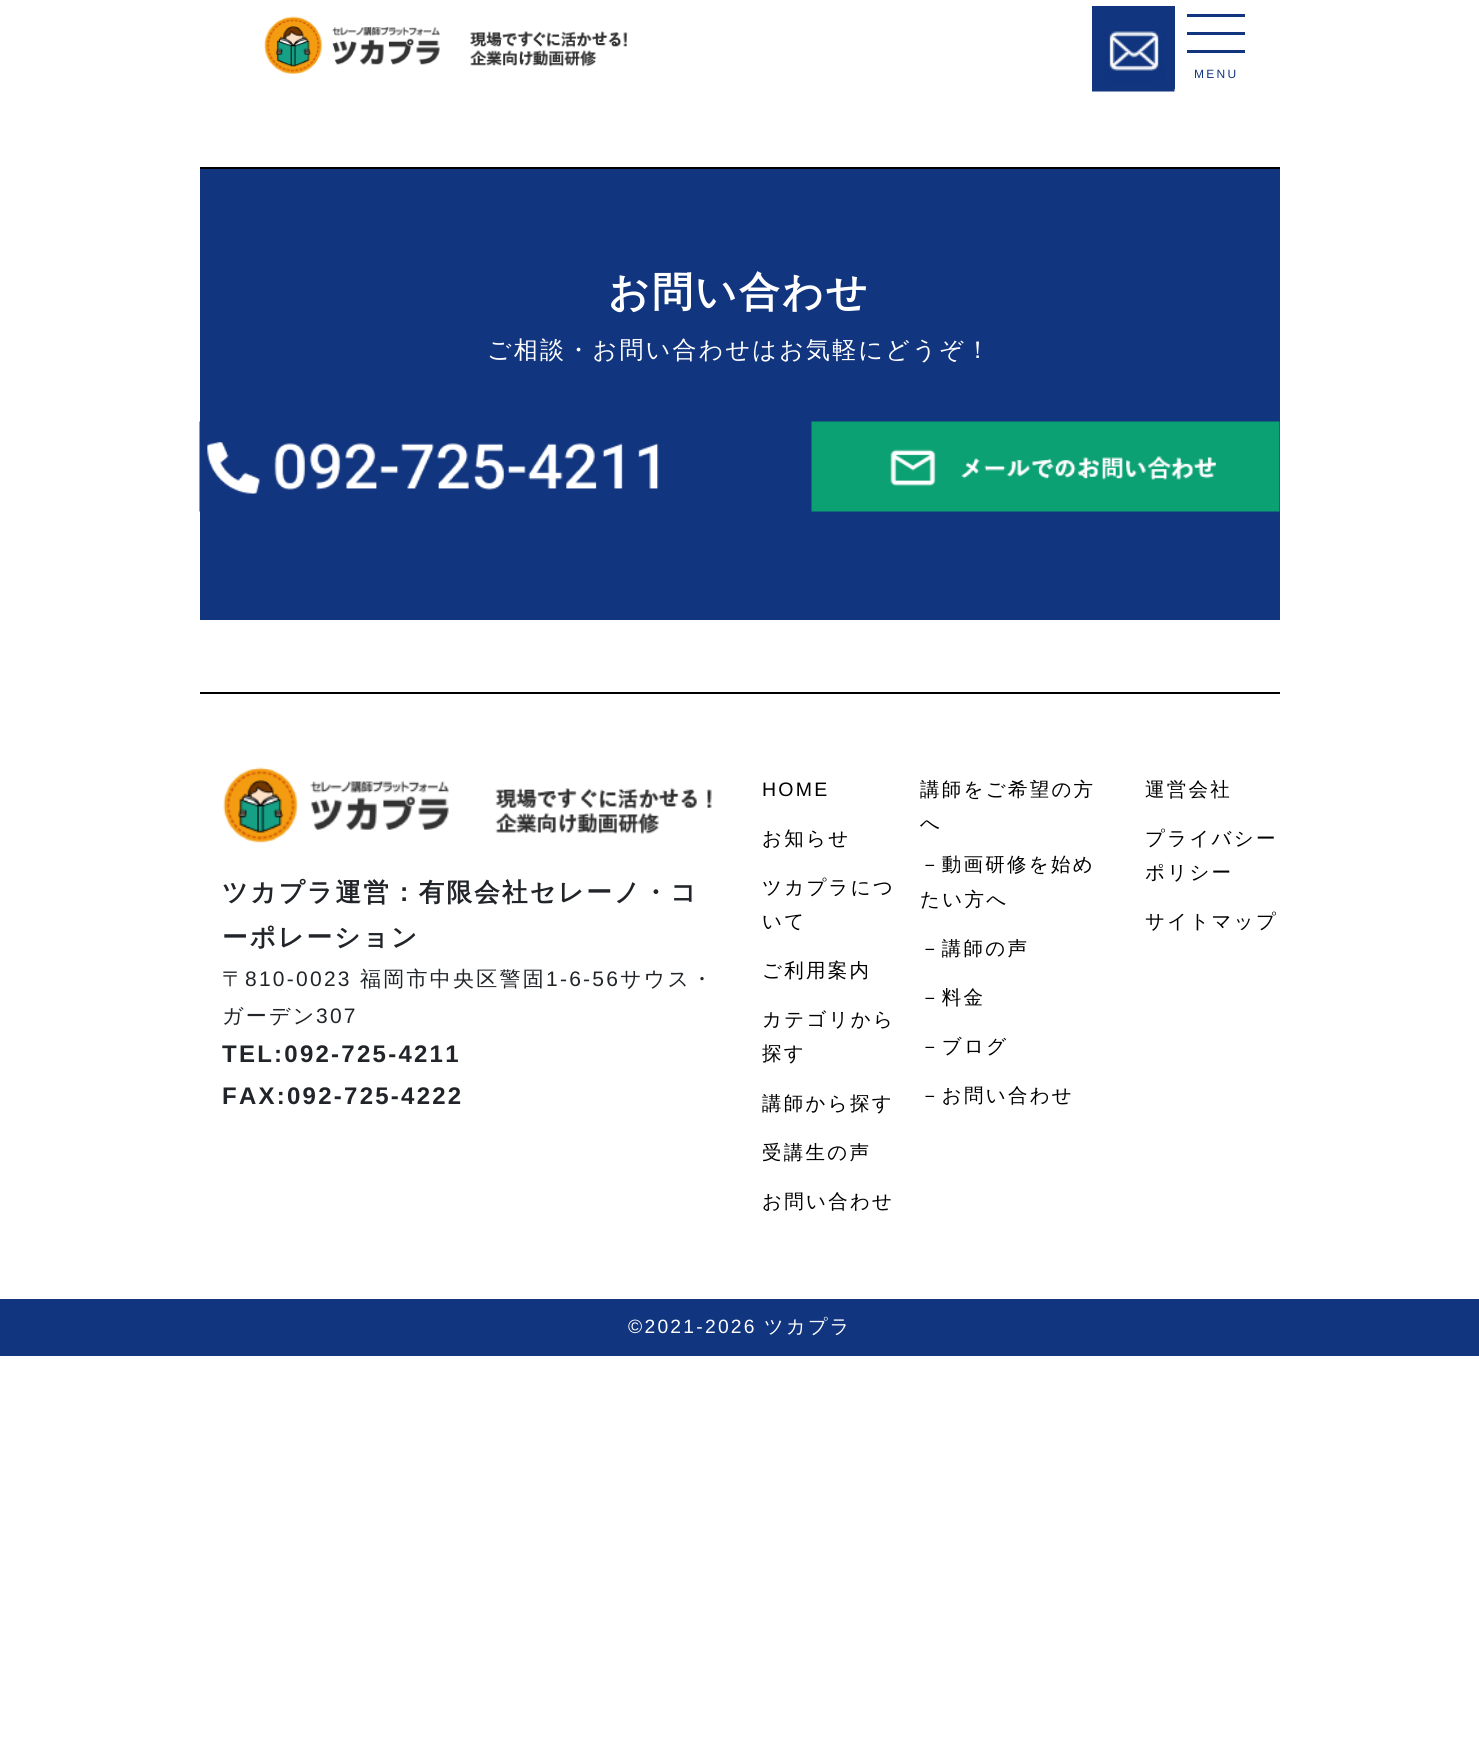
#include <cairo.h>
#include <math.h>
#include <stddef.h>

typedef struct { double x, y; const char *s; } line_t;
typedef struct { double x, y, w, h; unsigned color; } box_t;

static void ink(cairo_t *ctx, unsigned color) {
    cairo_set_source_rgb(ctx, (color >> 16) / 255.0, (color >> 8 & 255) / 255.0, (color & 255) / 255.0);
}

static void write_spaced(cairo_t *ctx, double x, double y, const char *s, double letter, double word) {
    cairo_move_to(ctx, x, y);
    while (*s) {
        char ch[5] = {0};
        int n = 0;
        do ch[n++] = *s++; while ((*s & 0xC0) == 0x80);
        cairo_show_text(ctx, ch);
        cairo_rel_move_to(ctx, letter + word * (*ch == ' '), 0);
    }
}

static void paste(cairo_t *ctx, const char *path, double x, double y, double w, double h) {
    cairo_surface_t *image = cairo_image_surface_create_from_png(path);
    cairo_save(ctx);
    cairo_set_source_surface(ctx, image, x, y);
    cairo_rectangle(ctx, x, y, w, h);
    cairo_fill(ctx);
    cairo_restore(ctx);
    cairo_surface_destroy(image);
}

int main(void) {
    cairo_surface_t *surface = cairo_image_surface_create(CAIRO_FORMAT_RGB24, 1479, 1761);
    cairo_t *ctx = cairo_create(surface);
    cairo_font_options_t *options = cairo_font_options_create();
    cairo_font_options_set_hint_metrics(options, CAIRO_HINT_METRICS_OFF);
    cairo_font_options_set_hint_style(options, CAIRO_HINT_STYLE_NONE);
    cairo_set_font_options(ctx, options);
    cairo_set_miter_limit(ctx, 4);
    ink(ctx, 0xFFFFFF);
    cairo_paint(ctx);
    paste(ctx, "media/1.png", 264, 16, 364, 58);
    ink(ctx, 0x11357F);
    cairo_rectangle(ctx, 1092, 6, 83, 83);
    cairo_fill(ctx);
    paste(ctx, "media/2.png", 1092, 29, 83, 63);
    {
        static const box_t items[] = {
            {1187, 14, 58, 3, 0x11357F},
            {1187, 32, 58, 3, 0x11357F},
            {1187, 50, 58, 3, 0x11357F},
        };
        for (size_t i = 0; i < sizeof items / sizeof *items; i++) {
            ink(ctx, items[i].color);
            cairo_rectangle(ctx, items[i].x, items[i].y, items[i].w, items[i].h);
            cairo_fill(ctx);
        }
    }
    cairo_select_font_face(ctx, "Liberation Sans", CAIRO_FONT_SLANT_NORMAL, CAIRO_FONT_WEIGHT_NORMAL);
    cairo_set_font_size(ctx, 12);
    write_spaced(ctx, 1194, 78, "MENU", 2.25, 0);
    cairo_rectangle(ctx, 200, 169, 1080, 451);
    cairo_fill(ctx);
    ink(ctx, 0x000000);
    cairo_rectangle(ctx, 200, 167, 1080, 2);
    cairo_fill(ctx);
    cairo_select_font_face(ctx, "WenQuanYi Zen Hei", CAIRO_FONT_SLANT_NORMAL, CAIRO_FONT_WEIGHT_BOLD);
    cairo_set_font_size(ctx, 40.75);
    ink(ctx, 0xFFFFFF);
    write_spaced(ctx, 608, 306, "お問い合わせ", 2.25, 0);
    cairo_select_font_face(ctx, "WenQuanYi Zen Hei Medium", CAIRO_FONT_SLANT_NORMAL, CAIRO_FONT_WEIGHT_NORMAL);
    cairo_set_font_size(ctx, 24);
    write_spaced(ctx, 487, 358, "ご相談・お問い合わせはお気軽にどうぞ！", 2.25, 0);
    paste(ctx, "media/3.png", 199, 421, 460, 91);
    paste(ctx, "media/4.png", 811, 421, 469, 91);
    ink(ctx, 0x000000);
    cairo_rectangle(ctx, 200, 692, 1080, 2);
    cairo_fill(ctx);
    paste(ctx, "media/5.png", 223, 767, 489, 76);
    cairo_select_font_face(ctx, "WenQuanYi Zen Hei", CAIRO_FONT_SLANT_NORMAL, CAIRO_FONT_WEIGHT_BOLD);
    cairo_set_font_size(ctx, 25.5);
    ink(ctx, 0x212529);
    write_spaced(ctx, 222, 901, "ツカプラ運営：有限会社セレーノ・コ", 2.25, 0);
    write_spaced(ctx, 222, 946, "ーポレーション", 2.25, 0);
    cairo_select_font_face(ctx, "WenQuanYi Zen Hei Medium", CAIRO_FONT_SLANT_NORMAL, CAIRO_FONT_WEIGHT_NORMAL);
    cairo_set_font_size(ctx, 21);
    write_spaced(ctx, 222, 986, "〒", 2.25, 0);
    cairo_select_font_face(ctx, "Liberation Sans", CAIRO_FONT_SLANT_NORMAL, CAIRO_FONT_WEIGHT_NORMAL);
    write_spaced(ctx, 245, 986, "810-0023", 2.25, 0);
    cairo_select_font_face(ctx, "WenQuanYi Zen Hei Medium", CAIRO_FONT_SLANT_NORMAL, CAIRO_FONT_WEIGHT_NORMAL);
    write_spaced(ctx, 360, 986, "福岡市中央区警固", 2.25, 0);
    cairo_select_font_face(ctx, "Liberation Sans", CAIRO_FONT_SLANT_NORMAL, CAIRO_FONT_WEIGHT_NORMAL);
    write_spaced(ctx, 546, 986, "1-6-56", 2.25, 0);
    cairo_select_font_face(ctx, "WenQuanYi Zen Hei Medium", CAIRO_FONT_SLANT_NORMAL, CAIRO_FONT_WEIGHT_NORMAL);
    write_spaced(ctx, 620, 986, "サウス・", 2.25, 0);
    write_spaced(ctx, 222, 1023, "ガーデン", 2.25, 0);
    cairo_select_font_face(ctx, "Liberation Sans", CAIRO_FONT_SLANT_NORMAL, CAIRO_FONT_WEIGHT_NORMAL);
    write_spaced(ctx, 316, 1023, "307", 2.25, 0);
    cairo_select_font_face(ctx, "Liberation Sans", CAIRO_FONT_SLANT_NORMAL, CAIRO_FONT_WEIGHT_BOLD);
    cairo_set_font_size(ctx, 24);
    write_spaced(ctx, 222, 1062, "TEL:092-725-4211", 2.25, 0);
    write_spaced(ctx, 222, 1104, "FAX:092-725-4222", 2.25, 0);
    cairo_select_font_face(ctx, "Liberation Sans", CAIRO_FONT_SLANT_NORMAL, CAIRO_FONT_WEIGHT_NORMAL);
    cairo_set_font_size(ctx, 19.5);
    ink(ctx, 0x000000);
    write_spaced(ctx, 762, 796, "HOME", 2.25, 0);
    cairo_select_font_face(ctx, "WenQuanYi Zen Hei Medium", CAIRO_FONT_SLANT_NORMAL, CAIRO_FONT_WEIGHT_NORMAL);
    {
        static const line_t items[] = {
            {762, 845, "お知らせ"},
            {762, 894, "ツカプラにつ"},
            {762, 928, "いて"},
            {762, 977, "ご利用案内"},
            {762, 1026, "カテゴリから"},
            {762, 1060, "探す"},
            {762, 1110, "講師から探す"},
            {762, 1159, "受講生の声"},
            {762, 1208, "お問い合わせ"},
            {920, 796, "講師をご希望の方"},
            {920, 830, "へ"},
            {920, 871, "－動画研修を始め"},
            {920, 906, "たい方へ"},
            {920, 955, "－講師の声"},
            {920, 1004, "－料金"},
            {920, 1053, "－ブログ"},
            {920, 1102, "－お問い合わせ"},
            {1145, 796, "運営会社"},
            {1145, 845, "プライバシー"},
            {1145, 879, "ポリシー"},
            {1145, 928, "サイトマップ"},
        };
        for (size_t i = 0; i < sizeof items / sizeof *items; i++) {
            write_spaced(ctx, items[i].x, items[i].y, items[i].s, 2.25, 0);
        }
    }
    ink(ctx, 0x11357F);
    cairo_rectangle(ctx, 0, 1299, 1479, 57);
    cairo_fill(ctx);
    cairo_select_font_face(ctx, "Liberation Sans", CAIRO_FONT_SLANT_NORMAL, CAIRO_FONT_WEIGHT_NORMAL);
    cairo_set_font_size(ctx, 19.25);
    ink(ctx, 0xFFFFFF);
    write_spaced(ctx, 628, 1333, "©2021-2026", 2.25, 0);
    cairo_select_font_face(ctx, "WenQuanYi Zen Hei Medium", CAIRO_FONT_SLANT_NORMAL, CAIRO_FONT_WEIGHT_NORMAL);
    write_spaced(ctx, 764, 1333, "ツカプラ", 2.25, 0);
    cairo_surface_write_to_png(surface, "image.png");
    cairo_font_options_destroy(options);
    cairo_destroy(ctx);
    cairo_surface_destroy(surface);
    return 0;
}
